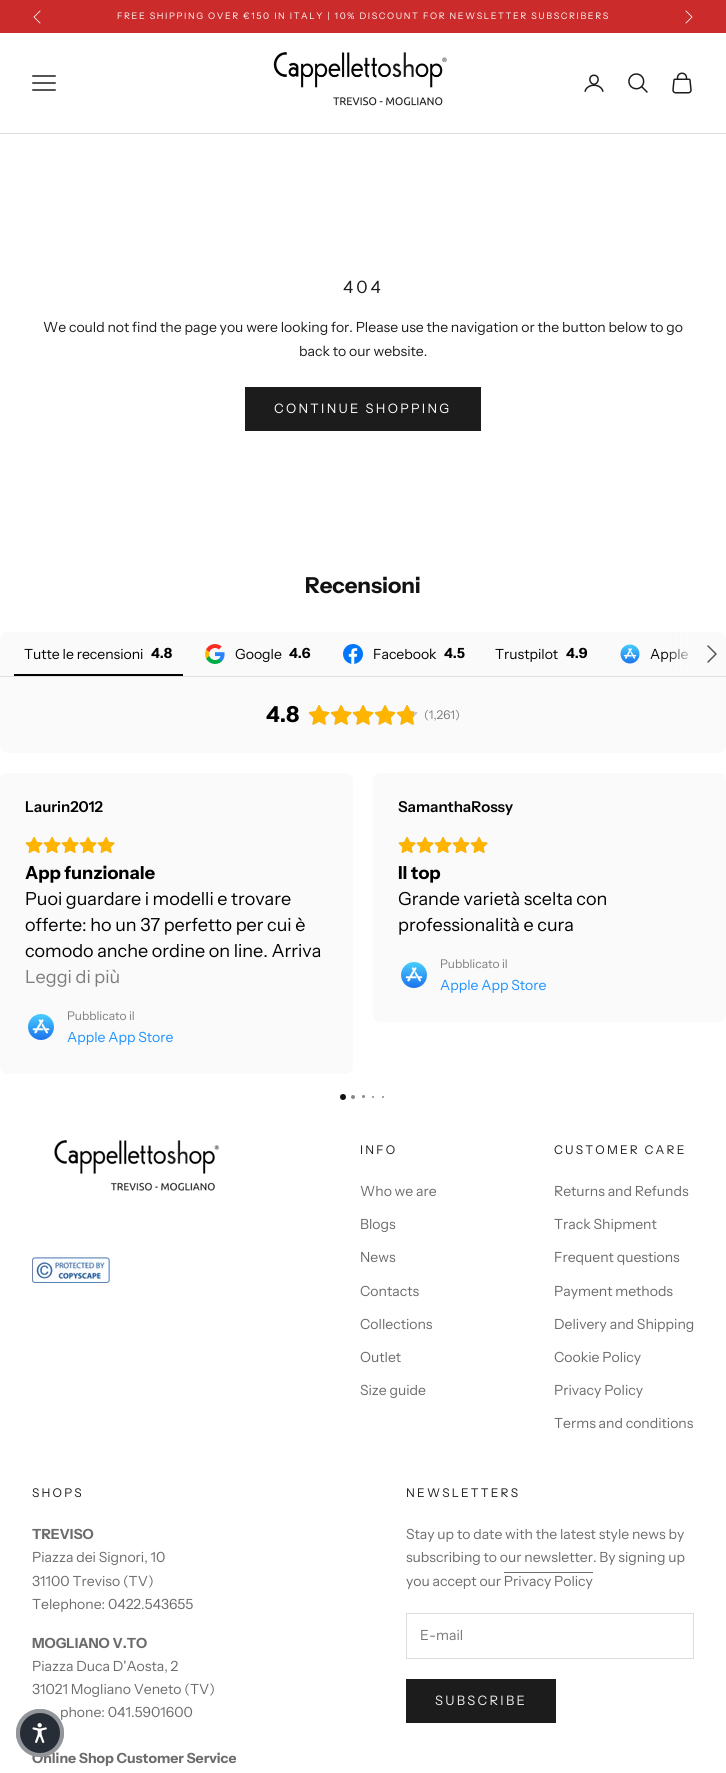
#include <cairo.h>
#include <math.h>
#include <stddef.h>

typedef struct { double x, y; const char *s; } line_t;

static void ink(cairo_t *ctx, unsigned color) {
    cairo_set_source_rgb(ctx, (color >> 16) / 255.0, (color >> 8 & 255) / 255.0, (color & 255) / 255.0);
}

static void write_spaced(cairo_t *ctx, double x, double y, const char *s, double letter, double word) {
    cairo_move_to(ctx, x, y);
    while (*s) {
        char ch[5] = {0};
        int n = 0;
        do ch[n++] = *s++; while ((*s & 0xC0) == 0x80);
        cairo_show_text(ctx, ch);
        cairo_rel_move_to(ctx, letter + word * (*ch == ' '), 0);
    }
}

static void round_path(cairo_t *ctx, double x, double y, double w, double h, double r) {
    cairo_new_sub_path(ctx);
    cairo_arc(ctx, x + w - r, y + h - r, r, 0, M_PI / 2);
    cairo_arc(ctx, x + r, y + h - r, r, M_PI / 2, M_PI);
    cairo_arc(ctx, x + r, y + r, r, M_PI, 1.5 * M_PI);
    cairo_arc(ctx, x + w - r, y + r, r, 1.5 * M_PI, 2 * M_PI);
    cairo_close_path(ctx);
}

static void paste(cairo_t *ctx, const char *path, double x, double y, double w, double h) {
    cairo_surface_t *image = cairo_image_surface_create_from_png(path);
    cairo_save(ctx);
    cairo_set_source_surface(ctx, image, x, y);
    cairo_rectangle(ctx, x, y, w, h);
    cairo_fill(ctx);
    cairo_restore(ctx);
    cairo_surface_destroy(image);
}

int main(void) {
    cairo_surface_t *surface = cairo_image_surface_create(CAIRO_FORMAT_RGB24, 726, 1773);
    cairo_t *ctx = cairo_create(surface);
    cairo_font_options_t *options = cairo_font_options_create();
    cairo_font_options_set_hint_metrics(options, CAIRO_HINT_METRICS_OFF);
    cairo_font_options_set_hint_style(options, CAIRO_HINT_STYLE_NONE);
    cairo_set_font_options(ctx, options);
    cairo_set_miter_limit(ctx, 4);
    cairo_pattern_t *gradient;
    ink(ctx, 0xFFFFFF);
    cairo_paint(ctx);
    ink(ctx, 0xCB2B2B);
    cairo_rectangle(ctx, 0, 0, 726, 33);
    cairo_fill(ctx);
    cairo_new_path(ctx);
    cairo_move_to(ctx, 40, 11);
    cairo_line_to(ctx, 34, 17);
    cairo_line_to(ctx, 40, 23);
    ink(ctx, 0xFFFFFF);
    cairo_set_line_width(ctx, 0.8);
    cairo_set_line_cap(ctx, CAIRO_LINE_CAP_SQUARE);
    cairo_stroke(ctx);
    cairo_select_font_face(ctx, "Instrument Sans", CAIRO_FONT_SLANT_NORMAL, CAIRO_FONT_WEIGHT_NORMAL);
    cairo_set_font_size(ctx, 9);
    write_spaced(ctx, 117, 19, "FREE SHIPPING OVER €150 IN ITALY | 10% DISCOUNT FOR NEWSLETTER SUBSCRIBERS", 1.62, 0);
    cairo_new_path(ctx);
    cairo_move_to(ctx, 686, 23);
    cairo_line_to(ctx, 692, 17);
    cairo_line_to(ctx, 686, 11);
    cairo_stroke(ctx);
    ink(ctx, 0xDDDDDD);
    cairo_rectangle(ctx, 0, 133, 726, 1);
    cairo_fill(ctx);
    cairo_new_path(ctx);
    cairo_move_to(ctx, 33, 90);
    cairo_line_to(ctx, 55, 90);
    cairo_move_to(ctx, 33, 83);
    cairo_line_to(ctx, 55, 83);
    cairo_move_to(ctx, 33, 76);
    cairo_line_to(ctx, 55, 76);
    ink(ctx, 0x1C1C1C);
    cairo_set_line_width(ctx, 1.5);
    cairo_stroke(ctx);
    paste(ctx, "media/1.png", 273, 52, 174, 54);
    paste(ctx, "media/2.png", 584, 74, 20, 18);
    paste(ctx, "media/3.png", 628, 73, 20, 20);
    paste(ctx, "media/4.png", 672, 72, 20, 22);
    cairo_set_font_size(ctx, 17);
    write_spaced(ctx, 343, 293, "404", 3, 0);
    cairo_set_font_size(ctx, 14);
    cairo_move_to(ctx, 43, 332);
    cairo_show_text(ctx, "We could not find the page you were looking for. Please use the navigation or the button below to go");
    cairo_move_to(ctx, 299, 356);
    cairo_show_text(ctx, "back to our website.");
    cairo_rectangle(ctx, 245.5, 387.5, 235, 43);
    cairo_fill_preserve(ctx);
    cairo_set_line_width(ctx, 1);
    cairo_set_line_cap(ctx, CAIRO_LINE_CAP_BUTT);
    cairo_stroke(ctx);
    cairo_set_font_size(ctx, 13);
    ink(ctx, 0xFFFFFF);
    write_spaced(ctx, 274, 413, "CONTINUE SHOPPING", 2.3, 0);
    cairo_select_font_face(ctx, "Instrument Sans", CAIRO_FONT_SLANT_NORMAL, CAIRO_FONT_WEIGHT_BOLD);
    cairo_set_font_size(ctx, 22);
    ink(ctx, 0x111111);
    cairo_move_to(ctx, 305, 593);
    cairo_show_text(ctx, "Recensioni");
    ink(ctx, 0xFAFAFA);
    cairo_new_path(ctx);
    cairo_move_to(ctx, 8, 632);
    cairo_line_to(ctx, 718, 632);
    cairo_curve_to(ctx, 722.5, 632, 726, 635.5, 726, 640);
    cairo_line_to(ctx, 726, 677);
    cairo_line_to(ctx, 0, 677);
    cairo_line_to(ctx, 0, 640);
    cairo_curve_to(ctx, 0, 635.5, 3.5, 632, 8, 632);
    cairo_close_path(ctx);
    cairo_fill(ctx);
    ink(ctx, 0xE1E1E1);
    cairo_rectangle(ctx, 0, 676, 726, 1);
    cairo_fill(ctx);
    cairo_select_font_face(ctx, "Instrument Sans", CAIRO_FONT_SLANT_NORMAL, CAIRO_FONT_WEIGHT_NORMAL);
    cairo_set_font_size(ctx, 14);
    ink(ctx, 0x000000);
    cairo_move_to(ctx, 24, 659);
    cairo_show_text(ctx, "Tutte le recensioni");
    cairo_select_font_face(ctx, "Instrument Sans", CAIRO_FONT_SLANT_NORMAL, CAIRO_FONT_WEIGHT_BOLD);
    cairo_move_to(ctx, 151, 658);
    cairo_show_text(ctx, "4.8");
    cairo_rectangle(ctx, 14, 674, 169, 2);
    cairo_fill(ctx);
    paste(ctx, "media/5.png", 205, 644, 20, 20);
    cairo_select_font_face(ctx, "Instrument Sans", CAIRO_FONT_SLANT_NORMAL, CAIRO_FONT_WEIGHT_NORMAL);
    cairo_move_to(ctx, 235, 659);
    cairo_show_text(ctx, "Google");
    cairo_select_font_face(ctx, "Instrument Sans", CAIRO_FONT_SLANT_NORMAL, CAIRO_FONT_WEIGHT_BOLD);
    cairo_move_to(ctx, 289, 658);
    cairo_show_text(ctx, "4.6");
    paste(ctx, "media/6.png", 343, 644, 20, 20);
    cairo_select_font_face(ctx, "Instrument Sans", CAIRO_FONT_SLANT_NORMAL, CAIRO_FONT_WEIGHT_NORMAL);
    cairo_move_to(ctx, 373, 659);
    cairo_show_text(ctx, "Facebook");
    cairo_select_font_face(ctx, "Instrument Sans", CAIRO_FONT_SLANT_NORMAL, CAIRO_FONT_WEIGHT_BOLD);
    cairo_move_to(ctx, 444, 658);
    cairo_show_text(ctx, "4.5");
    cairo_select_font_face(ctx, "Instrument Sans", CAIRO_FONT_SLANT_NORMAL, CAIRO_FONT_WEIGHT_NORMAL);
    cairo_move_to(ctx, 495, 659);
    cairo_show_text(ctx, "Trustpilot");
    cairo_select_font_face(ctx, "Instrument Sans", CAIRO_FONT_SLANT_NORMAL, CAIRO_FONT_WEIGHT_BOLD);
    cairo_move_to(ctx, 566, 658);
    cairo_show_text(ctx, "4.9");
    paste(ctx, "media/7.png", 620, 644, 20, 20);
    cairo_select_font_face(ctx, "Instrument Sans", CAIRO_FONT_SLANT_NORMAL, CAIRO_FONT_WEIGHT_NORMAL);
    cairo_move_to(ctx, 650, 659);
    cairo_show_text(ctx, "Apple");
    gradient = cairo_pattern_create_linear(664, 655, 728, 655);
    cairo_pattern_add_color_stop_rgba(gradient, 0, 0.98, 0.98, 0.98, 0);
    cairo_pattern_add_color_stop_rgba(gradient, 0.5, 0.98, 0.98, 0.98, 1);
    cairo_set_source(ctx, gradient);
    cairo_pattern_destroy(gradient);
    cairo_new_path(ctx);
    cairo_move_to(ctx, 664, 632);
    cairo_line_to(ctx, 718, 632);
    cairo_curve_to(ctx, 722.5, 632, 726, 635.5, 726, 640);
    cairo_line_to(ctx, 726, 676);
    cairo_line_to(ctx, 664, 676);
    cairo_close_path(ctx);
    cairo_fill(ctx);
    cairo_new_path(ctx);
    cairo_move_to(ctx, 708, 646);
    cairo_line_to(ctx, 716, 654);
    cairo_line_to(ctx, 708, 662);
    ink(ctx, 0x575757);
    cairo_set_line_width(ctx, 1.5);
    cairo_set_line_cap(ctx, CAIRO_LINE_CAP_ROUND);
    cairo_set_line_join(ctx, CAIRO_LINE_JOIN_ROUND);
    cairo_stroke(ctx);
    ink(ctx, 0xFAFAFA);
    cairo_new_path(ctx);
    cairo_move_to(ctx, 0, 677);
    cairo_line_to(ctx, 726, 677);
    cairo_line_to(ctx, 726, 745);
    cairo_curve_to(ctx, 726, 749.5, 722.5, 753, 718, 753);
    cairo_line_to(ctx, 8, 753);
    cairo_curve_to(ctx, 3.5, 753, 0, 749.5, 0, 745);
    cairo_close_path(ctx);
    cairo_fill(ctx);
    cairo_select_font_face(ctx, "Instrument Sans", CAIRO_FONT_SLANT_NORMAL, CAIRO_FONT_WEIGHT_BOLD);
    cairo_set_font_size(ctx, 22);
    ink(ctx, 0x000000);
    cairo_move_to(ctx, 266, 722);
    cairo_show_text(ctx, "4.8");
    paste(ctx, "media/9.png", 309, 705, 21, 20);
    paste(ctx, "media/8.png", 308, 705, 22, 20);
    paste(ctx, "media/9.png", 331, 705, 21, 20);
    paste(ctx, "media/8.png", 330, 705, 22, 20);
    paste(ctx, "media/9.png", 353, 705, 21, 20);
    paste(ctx, "media/8.png", 352, 705, 22, 20);
    paste(ctx, "media/9.png", 375, 705, 21, 20);
    paste(ctx, "media/8.png", 374, 705, 22, 20);
    paste(ctx, "media/9.png", 397, 705, 21, 20);
    paste(ctx, "media/10.png", 396, 705, 18, 20);
    cairo_select_font_face(ctx, "Instrument Sans", CAIRO_FONT_SLANT_NORMAL, CAIRO_FONT_WEIGHT_NORMAL);
    cairo_set_font_size(ctx, 12);
    ink(ctx, 0x7D7D7D);
    cairo_move_to(ctx, 424, 719);
    cairo_show_text(ctx, "(1,261)");
    ink(ctx, 0xFAFAFA);
    round_path(ctx, 0, 773, 353, 301, 8);
    cairo_fill(ctx);
    cairo_select_font_face(ctx, "Instrument Sans SemiBold", CAIRO_FONT_SLANT_NORMAL, CAIRO_FONT_WEIGHT_NORMAL);
    cairo_set_font_size(ctx, 15);
    ink(ctx, 0x000000);
    cairo_move_to(ctx, 25, 812);
    cairo_show_text(ctx, "Laurin2012");
    paste(ctx, "media/11.png", 25, 837, 18, 16);
    paste(ctx, "media/12.png", 25, 837, 18, 16);
    paste(ctx, "media/11.png", 43, 837, 18, 16);
    paste(ctx, "media/12.png", 43, 837, 18, 16);
    paste(ctx, "media/11.png", 61, 837, 18, 16);
    paste(ctx, "media/12.png", 61, 837, 18, 16);
    paste(ctx, "media/11.png", 79, 837, 18, 16);
    paste(ctx, "media/12.png", 79, 837, 18, 16);
    paste(ctx, "media/11.png", 97, 837, 18, 16);
    paste(ctx, "media/12.png", 97, 837, 18, 16);
    cairo_select_font_face(ctx, "Instrument Sans", CAIRO_FONT_SLANT_NORMAL, CAIRO_FONT_WEIGHT_BOLD);
    cairo_set_font_size(ctx, 18);
    cairo_move_to(ctx, 25, 879);
    cairo_show_text(ctx, "App funzionale");
    cairo_select_font_face(ctx, "Instrument Sans", CAIRO_FONT_SLANT_NORMAL, CAIRO_FONT_WEIGHT_NORMAL);
    {
        static const line_t items[] = {
            {25, 905, "Puoi guardare i modelli e trovare"},
            {25, 931, "offerte: ho un 37 perfetto per cui è"},
            {25, 957, "comodo anche ordine on line. Arriva"},
        };
        for (size_t i = 0; i < sizeof items / sizeof *items; i++) {
            cairo_move_to(ctx, items[i].x, items[i].y);
            cairo_show_text(ctx, items[i].s);
        }
    }
    ink(ctx, 0x7D7D7D);
    cairo_move_to(ctx, 25, 983);
    cairo_show_text(ctx, "Leggi di più");
    paste(ctx, "media/13.png", 28, 1014, 26, 26);
    cairo_set_font_size(ctx, 12);
    cairo_move_to(ctx, 67, 1020);
    cairo_show_text(ctx, "Pubblicato il");
    cairo_set_font_size(ctx, 14);
    ink(ctx, 0x1C91FF);
    cairo_move_to(ctx, 67, 1042);
    cairo_show_text(ctx, "Apple App Store");
    ink(ctx, 0xFAFAFA);
    round_path(ctx, 373, 773, 353, 249, 8);
    cairo_fill(ctx);
    cairo_select_font_face(ctx, "Instrument Sans SemiBold", CAIRO_FONT_SLANT_NORMAL, CAIRO_FONT_WEIGHT_NORMAL);
    cairo_set_font_size(ctx, 15);
    ink(ctx, 0x000000);
    cairo_move_to(ctx, 398, 812);
    cairo_show_text(ctx, "SamanthaRossy");
    paste(ctx, "media/11.png", 398, 837, 18, 16);
    paste(ctx, "media/12.png", 398, 837, 18, 16);
    paste(ctx, "media/11.png", 416, 837, 18, 16);
    paste(ctx, "media/12.png", 416, 837, 18, 16);
    paste(ctx, "media/11.png", 434, 837, 18, 16);
    paste(ctx, "media/12.png", 434, 837, 18, 16);
    paste(ctx, "media/11.png", 452, 837, 18, 16);
    paste(ctx, "media/12.png", 452, 837, 18, 16);
    paste(ctx, "media/11.png", 470, 837, 18, 16);
    paste(ctx, "media/12.png", 470, 837, 18, 16);
    cairo_select_font_face(ctx, "Instrument Sans", CAIRO_FONT_SLANT_NORMAL, CAIRO_FONT_WEIGHT_BOLD);
    cairo_set_font_size(ctx, 18);
    cairo_move_to(ctx, 398, 879);
    cairo_show_text(ctx, "Il top");
    cairo_select_font_face(ctx, "Instrument Sans", CAIRO_FONT_SLANT_NORMAL, CAIRO_FONT_WEIGHT_NORMAL);
    cairo_move_to(ctx, 398, 905);
    cairo_show_text(ctx, "Grande varietà scelta con");
    cairo_move_to(ctx, 398, 931);
    cairo_show_text(ctx, "professionalità e cura");
    paste(ctx, "media/13.png", 401, 962, 26, 26);
    cairo_set_font_size(ctx, 12);
    ink(ctx, 0x7D7D7D);
    cairo_move_to(ctx, 440, 968);
    cairo_show_text(ctx, "Pubblicato il");
    cairo_set_font_size(ctx, 14);
    ink(ctx, 0x1C91FF);
    cairo_move_to(ctx, 440, 990);
    cairo_show_text(ctx, "Apple App Store");
    ink(ctx, 0x111111);
    cairo_new_path(ctx);
    cairo_arc(ctx, 343, 1097, 3, 0, 2 * M_PI);
    cairo_fill(ctx);
    ink(ctx, 0x888888);
    cairo_arc(ctx, 353, 1097, 2, 0, 2 * M_PI);
    cairo_fill(ctx);
    cairo_arc(ctx, 363.5, 1096.5, 1.5, 0, 2 * M_PI);
    cairo_fill(ctx);
    cairo_arc(ctx, 373, 1097, 1, 0, 2 * M_PI);
    cairo_fill(ctx);
    cairo_arc(ctx, 383, 1097, 1, 0, 2 * M_PI);
    cairo_fill(ctx);
    paste(ctx, "media/14.png", 32, 1140, 188, 143);
    cairo_set_font_size(ctx, 12);
    ink(ctx, 0x1C1C1C);
    write_spaced(ctx, 360, 1154, "INFO", 2.2, 0);
    cairo_set_font_size(ctx, 14);
    ink(ctx, 0x6B6B6B);
    {
        static const line_t items[] = {
            {360, 1196, "Who we are"},
            {360, 1229, "Blogs"},
            {360, 1262, "News"},
            {360, 1296, "Contacts"},
            {360, 1329, "Collections"},
            {360, 1362, "Outlet"},
            {360, 1395, "Size guide"},
        };
        for (size_t i = 0; i < sizeof items / sizeof *items; i++) {
            cairo_move_to(ctx, items[i].x, items[i].y);
            cairo_show_text(ctx, items[i].s);
        }
    }
    cairo_set_font_size(ctx, 12);
    ink(ctx, 0x1C1C1C);
    write_spaced(ctx, 554, 1154, "CUSTOMER CARE", 2.2, 0);
    cairo_set_font_size(ctx, 14);
    ink(ctx, 0x6B6B6B);
    {
        static const line_t items[] = {
            {554, 1196, "Returns and Refunds"},
            {554, 1229, "Track Shipment"},
            {554, 1262, "Frequent questions"},
            {554, 1296, "Payment methods"},
            {554, 1329, "Delivery and Shipping"},
            {554, 1362, "Cookie Policy"},
            {554, 1395, "Privacy Policy"},
            {554, 1428, "Terms and conditions"},
        };
        for (size_t i = 0; i < sizeof items / sizeof *items; i++) {
            cairo_move_to(ctx, items[i].x, items[i].y);
            cairo_show_text(ctx, items[i].s);
        }
    }
    cairo_set_font_size(ctx, 12);
    ink(ctx, 0x1C1C1C);
    write_spaced(ctx, 32, 1497, "SHOPS", 2.2, 0);
    cairo_select_font_face(ctx, "Instrument Sans", CAIRO_FONT_SLANT_NORMAL, CAIRO_FONT_WEIGHT_BOLD);
    cairo_set_font_size(ctx, 14);
    ink(ctx, 0x6B6B6B);
    cairo_move_to(ctx, 32, 1539);
    cairo_show_text(ctx, "TREVISO");
    cairo_select_font_face(ctx, "Instrument Sans", CAIRO_FONT_SLANT_NORMAL, CAIRO_FONT_WEIGHT_NORMAL);
    {
        static const line_t items[] = {
            {32, 1562, "Piazza dei Signori, 10"},
            {32, 1586, "31100 Treviso (TV)"},
            {32, 1609, "Telephone: 0422.543655"},
        };
        for (size_t i = 0; i < sizeof items / sizeof *items; i++) {
            cairo_move_to(ctx, items[i].x, items[i].y);
            cairo_show_text(ctx, items[i].s);
        }
    }
    cairo_select_font_face(ctx, "Instrument Sans", CAIRO_FONT_SLANT_NORMAL, CAIRO_FONT_WEIGHT_BOLD);
    cairo_move_to(ctx, 32, 1648);
    cairo_show_text(ctx, "MOGLIANO V.TO");
    cairo_select_font_face(ctx, "Instrument Sans", CAIRO_FONT_SLANT_NORMAL, CAIRO_FONT_WEIGHT_NORMAL);
    {
        static const line_t items[] = {
            {32, 1671, "Piazza Duca D'Aosta, 2"},
            {32, 1694, "31021 Mogliano Veneto (TV)"},
            {60, 1717, "phone: 041.5901600"},
        };
        for (size_t i = 0; i < sizeof items / sizeof *items; i++) {
            cairo_move_to(ctx, items[i].x, items[i].y);
            cairo_show_text(ctx, items[i].s);
        }
    }
    cairo_select_font_face(ctx, "Instrument Sans", CAIRO_FONT_SLANT_NORMAL, CAIRO_FONT_WEIGHT_BOLD);
    cairo_move_to(ctx, 32, 1763);
    cairo_show_text(ctx, "Online Shop Customer Service");
    cairo_select_font_face(ctx, "Instrument Sans", CAIRO_FONT_SLANT_NORMAL, CAIRO_FONT_WEIGHT_NORMAL);
    cairo_set_font_size(ctx, 12);
    ink(ctx, 0x1C1C1C);
    write_spaced(ctx, 406, 1497, "NEWSLETTERS", 2.2, 0);
    cairo_set_font_size(ctx, 14);
    ink(ctx, 0x6B6B6B);
    cairo_move_to(ctx, 406, 1539);
    cairo_show_text(ctx, "Stay up to date with the latest style news by");
    cairo_move_to(ctx, 406, 1562);
    cairo_show_text(ctx, "subscribing to our newsletter. By signing up");
    cairo_rectangle(ctx, 504, 1572, 89, 1);
    cairo_fill(ctx);
    cairo_move_to(ctx, 406, 1586);
    cairo_show_text(ctx, "you accept our Privacy Policy");
    cairo_rectangle(ctx, 406.5, 1613.5, 287, 45);
    ink(ctx, 0xDDDDDD);
    cairo_set_line_width(ctx, 1);
    cairo_set_line_cap(ctx, CAIRO_LINE_CAP_BUTT);
    cairo_set_line_join(ctx, CAIRO_LINE_JOIN_MITER);
    cairo_stroke(ctx);
    ink(ctx, 0x777777);
    cairo_move_to(ctx, 420, 1640);
    cairo_show_text(ctx, "E-mail");
    ink(ctx, 0x1C1C1C);
    cairo_rectangle(ctx, 406.5, 1679.5, 149, 43);
    cairo_fill_preserve(ctx);
    cairo_stroke(ctx);
    cairo_set_font_size(ctx, 13);
    ink(ctx, 0xEFEFEF);
    write_spaced(ctx, 435, 1705, "SUBSCRIBE", 2.3, 0);
    ink(ctx, 0x272D36);
    cairo_new_path(ctx);
    cairo_arc(ctx, 40, 1733, 24, 0, 2 * M_PI);
    cairo_fill(ctx);
    cairo_arc(ctx, 40, 1733, 22, 0, 2 * M_PI);
    cairo_set_source_rgba(ctx, 1, 1, 1, 0.5);
    cairo_set_line_width(ctx, 4);
    cairo_stroke(ctx);
    paste(ctx, "media/15.png", 32, 1723, 15, 20);
    cairo_surface_write_to_png(surface, "image.png");
    cairo_font_options_destroy(options);
    cairo_destroy(ctx);
    cairo_surface_destroy(surface);
    return 0;
}
